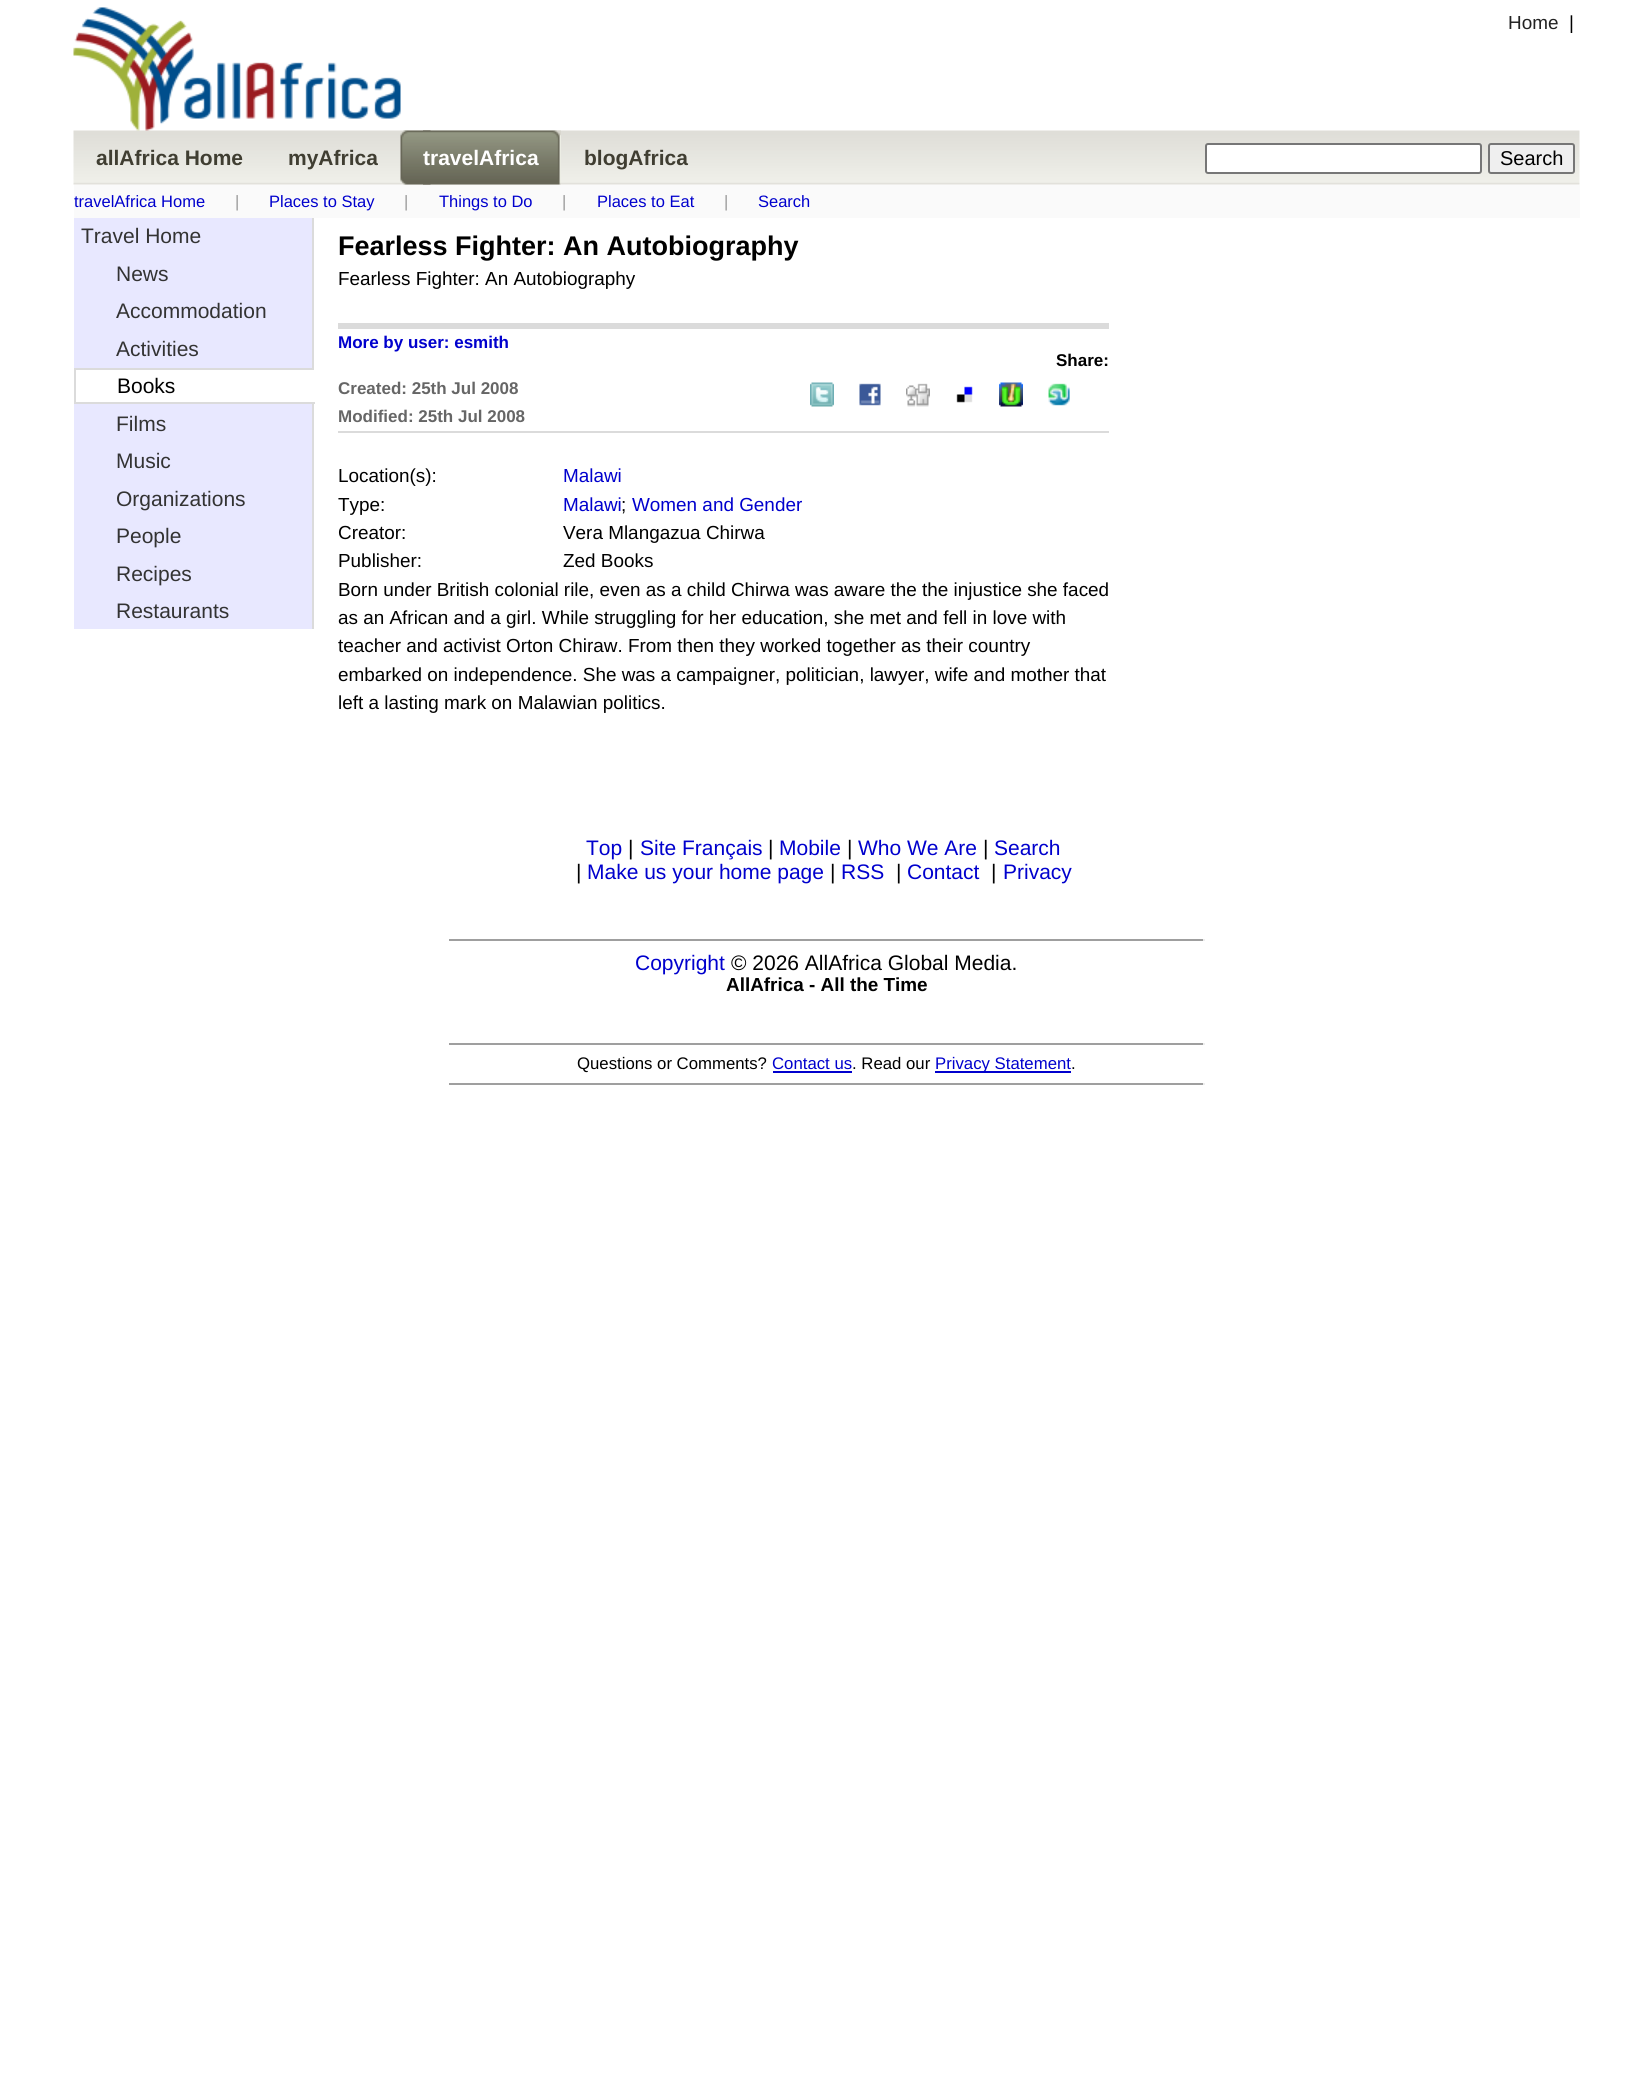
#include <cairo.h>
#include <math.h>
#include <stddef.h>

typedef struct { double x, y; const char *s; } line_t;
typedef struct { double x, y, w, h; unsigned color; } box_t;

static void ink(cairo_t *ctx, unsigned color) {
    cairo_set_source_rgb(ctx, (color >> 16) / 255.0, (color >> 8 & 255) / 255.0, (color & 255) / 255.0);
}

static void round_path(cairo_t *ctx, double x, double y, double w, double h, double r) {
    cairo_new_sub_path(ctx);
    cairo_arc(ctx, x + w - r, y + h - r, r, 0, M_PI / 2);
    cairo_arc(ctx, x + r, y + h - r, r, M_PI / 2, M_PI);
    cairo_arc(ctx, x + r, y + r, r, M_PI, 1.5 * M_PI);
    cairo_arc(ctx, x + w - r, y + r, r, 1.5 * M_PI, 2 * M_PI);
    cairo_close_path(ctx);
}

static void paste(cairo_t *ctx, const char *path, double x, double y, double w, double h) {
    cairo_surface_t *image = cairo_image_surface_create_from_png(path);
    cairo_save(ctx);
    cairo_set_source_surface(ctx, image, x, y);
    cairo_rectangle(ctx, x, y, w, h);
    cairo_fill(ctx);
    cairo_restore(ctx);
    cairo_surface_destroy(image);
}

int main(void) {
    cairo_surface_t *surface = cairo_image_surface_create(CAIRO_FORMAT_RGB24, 1652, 2095);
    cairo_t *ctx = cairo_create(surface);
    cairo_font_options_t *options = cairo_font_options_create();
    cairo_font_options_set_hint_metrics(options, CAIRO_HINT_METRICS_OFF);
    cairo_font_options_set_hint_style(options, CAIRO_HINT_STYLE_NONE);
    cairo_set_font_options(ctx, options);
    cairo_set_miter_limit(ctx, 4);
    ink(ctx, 0xFFFFFF);
    cairo_paint(ctx);
    paste(ctx, "media/2.png", 73, 130, 1507, 55);
    paste(ctx, "media/1.png", 73, 7, 328, 124);
    cairo_select_font_face(ctx, "Liberation Sans", CAIRO_FONT_SLANT_NORMAL, CAIRO_FONT_WEIGHT_NORMAL);
    cairo_set_font_size(ctx, 18.9);
    ink(ctx, 0x222222);
    cairo_move_to(ctx, 1508, 29);
    cairo_show_text(ctx, "Home");
    ink(ctx, 0x000000);
    cairo_move_to(ctx, 1569, 29);
    cairo_show_text(ctx, "|");
    cairo_select_font_face(ctx, "Liberation Sans", CAIRO_FONT_SLANT_NORMAL, CAIRO_FONT_WEIGHT_BOLD);
    cairo_set_font_size(ctx, 21);
    ink(ctx, 0x403E32);
    cairo_move_to(ctx, 96, 165);
    cairo_show_text(ctx, "allAfrica Home");
    cairo_move_to(ctx, 288, 165);
    cairo_show_text(ctx, "myAfrica");
    paste(ctx, "media/3.png", 400, 130, 31, 55);
    paste(ctx, "media/4.png", 423, 130, 138, 55);
    ink(ctx, 0xFFFFFF);
    cairo_move_to(ctx, 423, 165);
    cairo_show_text(ctx, "travelAfrica");
    ink(ctx, 0x403E32);
    cairo_move_to(ctx, 584, 165);
    cairo_show_text(ctx, "blogAfrica");
    ink(ctx, 0xFFFFFF);
    round_path(ctx, 1206, 144, 275, 29, 2);
    cairo_fill_preserve(ctx);
    ink(ctx, 0x767676);
    cairo_stroke(ctx);
    ink(ctx, 0xEFEFEF);
    round_path(ctx, 1489, 144, 85, 29, 2);
    cairo_fill_preserve(ctx);
    ink(ctx, 0x767676);
    cairo_stroke(ctx);
    cairo_select_font_face(ctx, "Liberation Sans", CAIRO_FONT_SLANT_NORMAL, CAIRO_FONT_WEIGHT_NORMAL);
    cairo_set_font_size(ctx, 20);
    ink(ctx, 0x000000);
    cairo_move_to(ctx, 1500, 165);
    cairo_show_text(ctx, "Search");
    ink(ctx, 0xFAFAFA);
    cairo_rectangle(ctx, 74, 185, 1506, 33);
    cairo_fill(ctx);
    cairo_set_font_size(ctx, 16.5);
    ink(ctx, 0x0000CD);
    cairo_move_to(ctx, 74, 207);
    cairo_show_text(ctx, "travelAfrica Home");
    ink(ctx, 0x999999);
    cairo_move_to(ctx, 235, 207);
    cairo_show_text(ctx, "|");
    ink(ctx, 0x0000CD);
    cairo_move_to(ctx, 269, 207);
    cairo_show_text(ctx, "Places to Stay");
    ink(ctx, 0x999999);
    cairo_move_to(ctx, 404, 207);
    cairo_show_text(ctx, "|");
    ink(ctx, 0x0000CD);
    cairo_move_to(ctx, 439, 207);
    cairo_show_text(ctx, "Things to Do");
    ink(ctx, 0x999999);
    cairo_move_to(ctx, 562, 207);
    cairo_show_text(ctx, "|");
    ink(ctx, 0x0000CD);
    cairo_move_to(ctx, 597, 207);
    cairo_show_text(ctx, "Places to Eat");
    ink(ctx, 0x999999);
    cairo_move_to(ctx, 724, 207);
    cairo_show_text(ctx, "|");
    ink(ctx, 0x0000CD);
    cairo_move_to(ctx, 758, 207);
    cairo_show_text(ctx, "Search");
    ink(ctx, 0xE8E8FF);
    cairo_rectangle(ctx, 74, 218, 238, 411);
    cairo_fill(ctx);
    ink(ctx, 0xDBDBDB);
    cairo_rectangle(ctx, 312, 218, 2, 411);
    cairo_fill(ctx);
    cairo_set_font_size(ctx, 21);
    ink(ctx, 0x333333);
    {
        static const line_t items[] = {
            {81, 243, "Travel Home"},
            {116, 281, "News"},
            {116, 318, "Accommodation"},
            {116, 356, "Activities"},
        };
        for (size_t i = 0; i < sizeof items / sizeof *items; i++) {
            cairo_move_to(ctx, items[i].x, items[i].y);
            cairo_show_text(ctx, items[i].s);
        }
    }
    {
        static const box_t items[] = {
            {76, 370, 238, 32, 0xFFFFFF},
            {74, 368, 241, 2, 0xDBDBDB},
            {314, 368, 1, 2, 0xFFFFFF},
            {74, 402, 241, 2, 0xDBDBDB},
            {74, 368, 2, 36, 0xDBDBDB},
        };
        for (size_t i = 0; i < sizeof items / sizeof *items; i++) {
            ink(ctx, items[i].color);
            cairo_rectangle(ctx, items[i].x, items[i].y, items[i].w, items[i].h);
            cairo_fill(ctx);
        }
    }
    ink(ctx, 0x000000);
    cairo_move_to(ctx, 117, 393);
    cairo_show_text(ctx, "Books");
    ink(ctx, 0x333333);
    {
        static const line_t items[] = {
            {116, 431, "Films"},
            {116, 468, "Music"},
            {116, 506, "Organizations"},
            {116, 543, "People"},
            {116, 581, "Recipes"},
            {116, 618, "Restaurants"},
        };
        for (size_t i = 0; i < sizeof items / sizeof *items; i++) {
            cairo_move_to(ctx, items[i].x, items[i].y);
            cairo_show_text(ctx, items[i].s);
        }
    }
    cairo_select_font_face(ctx, "Liberation Sans", CAIRO_FONT_SLANT_NORMAL, CAIRO_FONT_WEIGHT_BOLD);
    cairo_set_font_size(ctx, 27);
    ink(ctx, 0x000000);
    cairo_move_to(ctx, 338, 255);
    cairo_show_text(ctx, "Fearless Fighter: An Autobiography");
    cairo_select_font_face(ctx, "Liberation Sans", CAIRO_FONT_SLANT_NORMAL, CAIRO_FONT_WEIGHT_NORMAL);
    cairo_set_font_size(ctx, 18.9);
    cairo_move_to(ctx, 338, 285);
    cairo_show_text(ctx, "Fearless Fighter: An Autobiography");
    ink(ctx, 0xDBDBDB);
    cairo_rectangle(ctx, 338, 323, 771, 6);
    cairo_fill(ctx);
    cairo_rectangle(ctx, 338, 431, 771, 2);
    cairo_fill(ctx);
    cairo_select_font_face(ctx, "Liberation Sans", CAIRO_FONT_SLANT_NORMAL, CAIRO_FONT_WEIGHT_BOLD);
    cairo_set_font_size(ctx, 17);
    ink(ctx, 0x0000CD);
    cairo_move_to(ctx, 338, 348);
    cairo_show_text(ctx, "More by user: esmith");
    ink(ctx, 0x666666);
    cairo_move_to(ctx, 338, 394);
    cairo_show_text(ctx, "Created: 25th Jul 2008");
    cairo_move_to(ctx, 338, 422);
    cairo_show_text(ctx, "Modified: 25th Jul 2008");
    ink(ctx, 0x000000);
    cairo_move_to(ctx, 1056, 366);
    cairo_show_text(ctx, "Share:");
    paste(ctx, "media/5.png", 810, 382, 24, 25);
    paste(ctx, "media/6.png", 859, 383, 22, 23);
    paste(ctx, "media/7.png", 906, 383, 24, 24);
    paste(ctx, "media/8.png", 956, 386, 17, 17);
    paste(ctx, "media/9.png", 999, 382, 24, 25);
    paste(ctx, "media/10.png", 1048, 383, 22, 23);
    cairo_select_font_face(ctx, "Liberation Sans", CAIRO_FONT_SLANT_NORMAL, CAIRO_FONT_WEIGHT_NORMAL);
    cairo_set_font_size(ctx, 18.9);
    cairo_move_to(ctx, 338, 482);
    cairo_show_text(ctx, "Location(s):");
    ink(ctx, 0x0000CD);
    cairo_move_to(ctx, 563, 482);
    cairo_show_text(ctx, "Malawi");
    ink(ctx, 0x000000);
    cairo_move_to(ctx, 338, 511);
    cairo_show_text(ctx, "Type:");
    ink(ctx, 0x0000CD);
    cairo_move_to(ctx, 563, 511);
    cairo_show_text(ctx, "Malawi");
    ink(ctx, 0x000000);
    cairo_move_to(ctx, 621, 511);
    cairo_show_text(ctx, ";");
    ink(ctx, 0x0000CD);
    cairo_move_to(ctx, 632, 511);
    cairo_show_text(ctx, "Women and Gender");
    ink(ctx, 0x000000);
    {
        static const line_t items[] = {
            {338, 539, "Creator:"},
            {563, 539, "Vera Mlangazua Chirwa"},
            {338, 567, "Publisher:"},
            {563, 567, "Zed Books"},
            {338, 596, "Born under British colonial rile, even as a child Chirwa was aware the the injustice she faced"},
            {338, 624, "as an African and a girl. While struggling for her education, she met and fell in love with"},
            {338, 652, "teacher and activist Orton Chiraw. From then they worked together as their country"},
            {338, 681, "embarked on independence. She was a campaigner, politician, lawyer, wife and mother that"},
            {338, 709, "left a lasting mark on Malawian politics."},
        };
        for (size_t i = 0; i < sizeof items / sizeof *items; i++) {
            cairo_move_to(ctx, items[i].x, items[i].y);
            cairo_show_text(ctx, items[i].s);
        }
    }
    cairo_set_font_size(ctx, 21);
    ink(ctx, 0x0000CD);
    cairo_move_to(ctx, 586, 855);
    cairo_show_text(ctx, "Top");
    ink(ctx, 0x000000);
    cairo_move_to(ctx, 628, 855);
    cairo_show_text(ctx, "|");
    ink(ctx, 0x0000CD);
    cairo_move_to(ctx, 640, 855);
    cairo_show_text(ctx, "Site Français");
    ink(ctx, 0x000000);
    cairo_move_to(ctx, 768, 855);
    cairo_show_text(ctx, "|");
    ink(ctx, 0x0000CD);
    cairo_move_to(ctx, 779, 855);
    cairo_show_text(ctx, "Mobile");
    ink(ctx, 0x000000);
    cairo_move_to(ctx, 847, 855);
    cairo_show_text(ctx, "|");
    ink(ctx, 0x0000CD);
    cairo_move_to(ctx, 858, 855);
    cairo_show_text(ctx, "Who We Are");
    ink(ctx, 0x000000);
    cairo_move_to(ctx, 983, 855);
    cairo_show_text(ctx, "|");
    ink(ctx, 0x0000CD);
    cairo_move_to(ctx, 994, 855);
    cairo_show_text(ctx, "Search");
    ink(ctx, 0x000000);
    cairo_move_to(ctx, 576, 879);
    cairo_show_text(ctx, "|");
    ink(ctx, 0x0000CD);
    cairo_move_to(ctx, 587, 879);
    cairo_show_text(ctx, "Make us your home page");
    ink(ctx, 0x000000);
    cairo_move_to(ctx, 830, 879);
    cairo_show_text(ctx, "|");
    ink(ctx, 0x0000CD);
    cairo_move_to(ctx, 841, 879);
    cairo_show_text(ctx, "RSS");
    ink(ctx, 0x000000);
    cairo_move_to(ctx, 896, 879);
    cairo_show_text(ctx, "|");
    ink(ctx, 0x0000CD);
    cairo_move_to(ctx, 907, 879);
    cairo_show_text(ctx, "Contact");
    ink(ctx, 0x000000);
    cairo_move_to(ctx, 991, 879);
    cairo_show_text(ctx, "|");
    ink(ctx, 0x0000CD);
    cairo_move_to(ctx, 1003, 879);
    cairo_show_text(ctx, "Privacy");
    ink(ctx, 0x9F9F9F);
    cairo_rectangle(ctx, 449, 939, 756, 2);
    cairo_fill(ctx);
    ink(ctx, 0xEEEEEE);
    cairo_rectangle(ctx, 1203, 939, 2, 2);
    cairo_fill(ctx);
    ink(ctx, 0x0000CD);
    cairo_move_to(ctx, 635, 970);
    cairo_show_text(ctx, "Copyright");
    ink(ctx, 0x000000);
    cairo_move_to(ctx, 731, 970);
    cairo_show_text(ctx, "© 2026 AllAfrica Global Media.");
    cairo_select_font_face(ctx, "Liberation Sans", CAIRO_FONT_SLANT_NORMAL, CAIRO_FONT_WEIGHT_BOLD);
    cairo_set_font_size(ctx, 18.9);
    cairo_move_to(ctx, 726, 991);
    cairo_show_text(ctx, "AllAfrica - All the Time");
    ink(ctx, 0x9F9F9F);
    cairo_rectangle(ctx, 449, 1043, 756, 2);
    cairo_fill(ctx);
    ink(ctx, 0xEEEEEE);
    cairo_rectangle(ctx, 1203, 1043, 2, 2);
    cairo_fill(ctx);
    cairo_select_font_face(ctx, "Liberation Sans", CAIRO_FONT_SLANT_NORMAL, CAIRO_FONT_WEIGHT_NORMAL);
    cairo_set_font_size(ctx, 16.75);
    ink(ctx, 0x000000);
    cairo_move_to(ctx, 577, 1069);
    cairo_show_text(ctx, "Questions or Comments?");
    ink(ctx, 0x0000CD);
    cairo_move_to(ctx, 772, 1069);
    cairo_show_text(ctx, "Contact us");
    cairo_rectangle(ctx, 773, 1071, 79, 2);
    cairo_fill(ctx);
    ink(ctx, 0x000000);
    cairo_move_to(ctx, 852, 1069);
    cairo_show_text(ctx, ". Read our");
    ink(ctx, 0x0000CD);
    cairo_rectangle(ctx, 935, 1071, 136, 2);
    cairo_fill(ctx);
    cairo_move_to(ctx, 935, 1069);
    cairo_show_text(ctx, "Privacy Statement");
    ink(ctx, 0x000000);
    cairo_move_to(ctx, 1071, 1069);
    cairo_show_text(ctx, ".");
    ink(ctx, 0x9F9F9F);
    cairo_rectangle(ctx, 449, 1083, 756, 2);
    cairo_fill(ctx);
    ink(ctx, 0xEEEEEE);
    cairo_rectangle(ctx, 1203, 1083, 2, 2);
    cairo_fill(ctx);
    cairo_surface_write_to_png(surface, "image.png");
    cairo_font_options_destroy(options);
    cairo_destroy(ctx);
    cairo_surface_destroy(surface);
    return 0;
}
